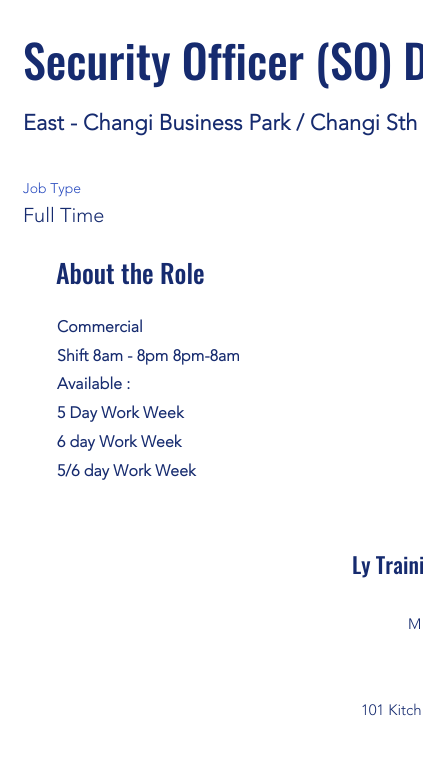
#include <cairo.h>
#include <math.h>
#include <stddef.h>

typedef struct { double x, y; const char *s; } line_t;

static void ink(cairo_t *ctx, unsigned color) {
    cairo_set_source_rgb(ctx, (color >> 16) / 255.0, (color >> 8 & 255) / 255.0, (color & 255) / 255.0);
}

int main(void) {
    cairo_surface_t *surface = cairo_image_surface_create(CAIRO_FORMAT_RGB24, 423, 757);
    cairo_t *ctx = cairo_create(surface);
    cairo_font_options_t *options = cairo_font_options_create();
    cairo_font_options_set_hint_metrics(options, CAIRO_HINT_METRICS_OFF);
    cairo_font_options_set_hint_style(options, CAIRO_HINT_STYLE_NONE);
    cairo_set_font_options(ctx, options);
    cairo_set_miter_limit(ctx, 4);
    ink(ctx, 0xFFFFFF);
    cairo_paint(ctx);
    cairo_select_font_face(ctx, "Oswald Medium", CAIRO_FONT_SLANT_NORMAL, CAIRO_FONT_WEIGHT_NORMAL);
    cairo_set_font_size(ctx, 46);
    ink(ctx, 0x162B6F);
    cairo_move_to(ctx, 23, 80);
    cairo_show_text(ctx, "Security Officer (SO) D");
    cairo_select_font_face(ctx, "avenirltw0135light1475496", CAIRO_FONT_SLANT_NORMAL, CAIRO_FONT_WEIGHT_BOLD);
    cairo_set_font_size(ctx, 22);
    cairo_move_to(ctx, 23, 130);
    cairo_show_text(ctx, "East - Changi Business Park / Changi Sth");
    cairo_select_font_face(ctx, "avenirltw0135light1475496 Light", CAIRO_FONT_SLANT_NORMAL, CAIRO_FONT_WEIGHT_NORMAL);
    cairo_set_font_size(ctx, 14);
    ink(ctx, 0x2649BE);
    cairo_move_to(ctx, 23, 193);
    cairo_show_text(ctx, "Job Type");
    cairo_set_font_size(ctx, 20);
    ink(ctx, 0x162B6F);
    cairo_move_to(ctx, 23, 222);
    cairo_show_text(ctx, "Full Time");
    cairo_select_font_face(ctx, "Oswald Medium", CAIRO_FONT_SLANT_NORMAL, CAIRO_FONT_WEIGHT_NORMAL);
    cairo_set_font_size(ctx, 26);
    cairo_move_to(ctx, 56, 284);
    cairo_show_text(ctx, "About the Role");
    cairo_select_font_face(ctx, "avenirltw0135light1475496", CAIRO_FONT_SLANT_NORMAL, CAIRO_FONT_WEIGHT_BOLD);
    cairo_set_font_size(ctx, 16);
    {
        static const line_t items[] = {
            {57, 332, "Commercial"},
            {57, 361, "Shift 8am - 8pm 8pm-8am"},
            {57, 389, "Available :"},
            {57, 418, "5 Day Work Week"},
            {57, 447, "6 day Work Week"},
            {57, 476, "5/6 day Work Week"},
        };
        for (size_t i = 0; i < sizeof items / sizeof *items; i++) {
            cairo_move_to(ctx, items[i].x, items[i].y);
            cairo_show_text(ctx, items[i].s);
        }
    }
    cairo_select_font_face(ctx, "Oswald Medium", CAIRO_FONT_SLANT_NORMAL, CAIRO_FONT_WEIGHT_NORMAL);
    cairo_set_font_size(ctx, 22);
    cairo_move_to(ctx, 352, 574);
    cairo_show_text(ctx, "Ly Traini");
    cairo_select_font_face(ctx, "avenirltw0135light1475496 Light", CAIRO_FONT_SLANT_NORMAL, CAIRO_FONT_WEIGHT_NORMAL);
    cairo_set_font_size(ctx, 15);
    cairo_move_to(ctx, 408, 629);
    cairo_show_text(ctx, "M");
    cairo_move_to(ctx, 361, 715);
    cairo_show_text(ctx, "101 Kitch");
    cairo_surface_write_to_png(surface, "image.png");
    cairo_font_options_destroy(options);
    cairo_destroy(ctx);
    cairo_surface_destroy(surface);
    return 0;
}
